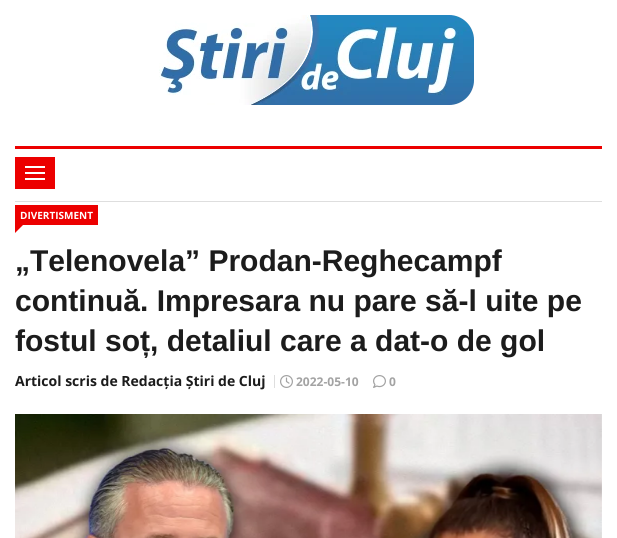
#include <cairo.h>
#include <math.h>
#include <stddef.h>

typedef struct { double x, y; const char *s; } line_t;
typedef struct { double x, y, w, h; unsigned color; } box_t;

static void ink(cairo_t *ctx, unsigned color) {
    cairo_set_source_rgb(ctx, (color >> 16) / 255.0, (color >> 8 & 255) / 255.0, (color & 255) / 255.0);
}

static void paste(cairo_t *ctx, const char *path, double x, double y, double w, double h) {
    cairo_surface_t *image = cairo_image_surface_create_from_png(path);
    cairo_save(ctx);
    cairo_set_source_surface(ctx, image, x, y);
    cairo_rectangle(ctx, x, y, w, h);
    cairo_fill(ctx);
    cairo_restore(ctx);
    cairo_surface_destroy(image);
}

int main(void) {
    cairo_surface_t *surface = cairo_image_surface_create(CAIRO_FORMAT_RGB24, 617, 538);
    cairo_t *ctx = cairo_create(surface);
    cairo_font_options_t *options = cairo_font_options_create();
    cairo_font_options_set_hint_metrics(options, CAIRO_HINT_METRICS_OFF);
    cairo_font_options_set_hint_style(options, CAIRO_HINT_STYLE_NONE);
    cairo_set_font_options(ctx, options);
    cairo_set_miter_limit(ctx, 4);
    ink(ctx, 0xFFFFFF);
    cairo_paint(ctx);
    paste(ctx, "media/1.png", 159, 15, 315, 90);
    {
        static const box_t items[] = {
            {15, 146, 587, 3, 0xEC0000},
            {15, 201, 587, 1, 0xDEDEDE},
            {15, 157, 40, 32, 0xEC0000},
        };
        for (size_t i = 0; i < sizeof items / sizeof *items; i++) {
            ink(ctx, items[i].color);
            cairo_rectangle(ctx, items[i].x, items[i].y, items[i].w, items[i].h);
            cairo_fill(ctx);
        }
    }
    paste(ctx, "media/2.png", 25, 166, 20, 14);
    cairo_rectangle(ctx, 15, 205, 83, 20);
    cairo_fill(ctx);
    cairo_select_font_face(ctx, "Open Sans", CAIRO_FONT_SLANT_NORMAL, CAIRO_FONT_WEIGHT_BOLD);
    cairo_set_font_size(ctx, 10);
    ink(ctx, 0xFFFFFF);
    cairo_move_to(ctx, 20, 219);
    cairo_show_text(ctx, "DIVERTISMENT");
    ink(ctx, 0xEC0000);
    cairo_new_path(ctx);
    cairo_move_to(ctx, 15, 225);
    cairo_line_to(ctx, 23, 225);
    cairo_line_to(ctx, 15, 233);
    cairo_close_path(ctx);
    cairo_fill(ctx);
    cairo_select_font_face(ctx, "Arimo", CAIRO_FONT_SLANT_NORMAL, CAIRO_FONT_WEIGHT_BOLD);
    cairo_set_font_size(ctx, 30);
    ink(ctx, 0x1C1C1C);
    {
        static const line_t items[] = {
            {15, 271, "„Telenovela” Prodan-Reghecampf"},
            {15, 311, "continuă. Impresara nu pare să-l uite pe"},
            {15, 351, "fostul soț, detaliul care a dat-o de gol"},
        };
        for (size_t i = 0; i < sizeof items / sizeof *items; i++) {
            cairo_move_to(ctx, items[i].x, items[i].y);
            cairo_show_text(ctx, items[i].s);
        }
    }
    cairo_select_font_face(ctx, "Open Sans", CAIRO_FONT_SLANT_NORMAL, CAIRO_FONT_WEIGHT_BOLD);
    cairo_set_font_size(ctx, 14);
    cairo_move_to(ctx, 15, 386);
    cairo_show_text(ctx, "Articol scris de Redacția Știri de Cluj");
    ink(ctx, 0xDEDEDE);
    cairo_rectangle(ctx, 274, 375, 1, 13);
    cairo_fill(ctx);
    paste(ctx, "media/3.png", 280, 375, 13, 13);
    cairo_set_font_size(ctx, 12);
    ink(ctx, 0xA3A3A3);
    cairo_move_to(ctx, 296, 386);
    cairo_show_text(ctx, "2022-05-10");
    paste(ctx, "media/4.png", 373, 375, 13, 13);
    cairo_move_to(ctx, 389, 386);
    cairo_show_text(ctx, "0");
    paste(ctx, "media/6.png", 601, 414, 1, 124);
    paste(ctx, "media/5.png", 15, 414, 587, 124);
    cairo_surface_write_to_png(surface, "image.png");
    cairo_font_options_destroy(options);
    cairo_destroy(ctx);
    cairo_surface_destroy(surface);
    return 0;
}
